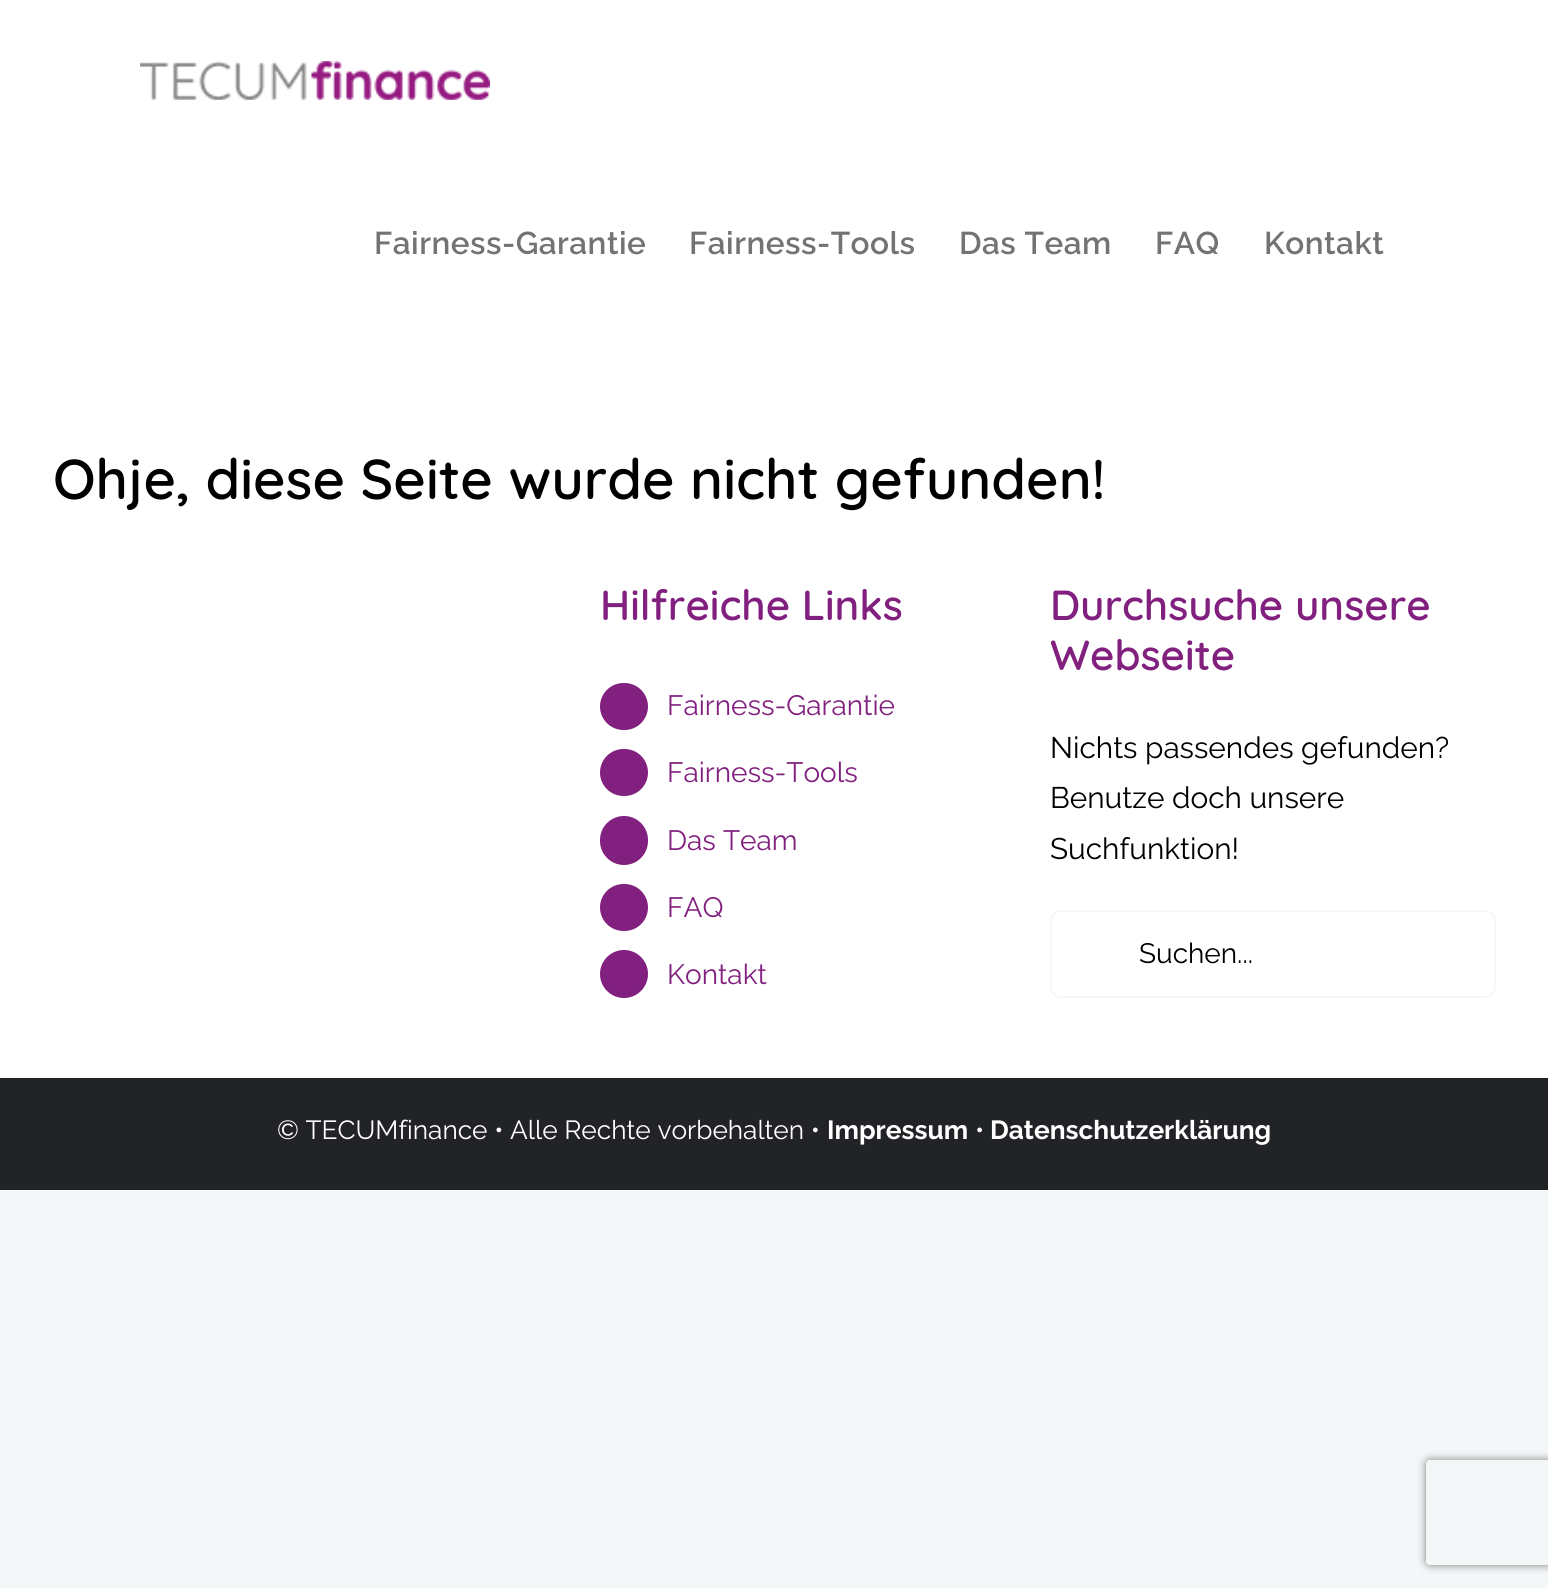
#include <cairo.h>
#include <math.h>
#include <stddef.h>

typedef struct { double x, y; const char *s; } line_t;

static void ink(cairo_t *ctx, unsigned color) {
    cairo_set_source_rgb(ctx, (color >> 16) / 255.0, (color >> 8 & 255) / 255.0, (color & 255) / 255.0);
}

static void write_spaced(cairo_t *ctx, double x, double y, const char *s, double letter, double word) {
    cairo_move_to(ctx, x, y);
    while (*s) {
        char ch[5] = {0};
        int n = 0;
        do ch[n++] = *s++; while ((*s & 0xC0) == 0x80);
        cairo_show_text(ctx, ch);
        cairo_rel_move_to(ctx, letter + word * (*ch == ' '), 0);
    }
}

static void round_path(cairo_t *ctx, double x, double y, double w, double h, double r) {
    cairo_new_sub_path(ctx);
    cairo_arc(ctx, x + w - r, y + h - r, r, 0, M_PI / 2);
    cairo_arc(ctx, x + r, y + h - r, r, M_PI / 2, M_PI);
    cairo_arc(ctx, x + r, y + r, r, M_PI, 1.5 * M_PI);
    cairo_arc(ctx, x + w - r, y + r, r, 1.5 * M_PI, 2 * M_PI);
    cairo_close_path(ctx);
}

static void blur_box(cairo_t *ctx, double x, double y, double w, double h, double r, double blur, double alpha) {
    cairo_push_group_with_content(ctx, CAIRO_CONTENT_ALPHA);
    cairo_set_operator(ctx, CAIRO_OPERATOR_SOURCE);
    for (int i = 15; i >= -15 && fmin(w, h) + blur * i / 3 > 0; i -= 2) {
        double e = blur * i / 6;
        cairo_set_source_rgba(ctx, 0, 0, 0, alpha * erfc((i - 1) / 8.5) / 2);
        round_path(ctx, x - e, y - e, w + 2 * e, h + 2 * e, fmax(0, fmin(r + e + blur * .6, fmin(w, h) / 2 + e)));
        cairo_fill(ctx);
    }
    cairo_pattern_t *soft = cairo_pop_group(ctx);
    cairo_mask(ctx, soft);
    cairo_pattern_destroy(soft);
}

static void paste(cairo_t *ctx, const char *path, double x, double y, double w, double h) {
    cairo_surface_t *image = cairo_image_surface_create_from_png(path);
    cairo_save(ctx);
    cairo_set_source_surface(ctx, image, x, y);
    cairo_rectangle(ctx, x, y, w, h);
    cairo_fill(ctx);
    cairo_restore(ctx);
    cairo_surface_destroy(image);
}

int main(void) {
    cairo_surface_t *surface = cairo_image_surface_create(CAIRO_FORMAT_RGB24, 1548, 1588);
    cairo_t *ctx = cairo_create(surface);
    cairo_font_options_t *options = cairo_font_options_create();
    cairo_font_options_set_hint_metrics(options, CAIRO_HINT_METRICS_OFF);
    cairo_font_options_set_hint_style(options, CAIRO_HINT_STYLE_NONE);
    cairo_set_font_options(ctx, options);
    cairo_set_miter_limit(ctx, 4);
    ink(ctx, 0xF4F7F8);
    cairo_paint(ctx);
    ink(ctx, 0xFFFFFF);
    cairo_rectangle(ctx, 0, 0, 1548, 1078);
    cairo_fill(ctx);
    paste(ctx, "media/1.png", 140, 61, 350, 39);
    cairo_select_font_face(ctx, "Raleway SemiBold", CAIRO_FONT_SLANT_NORMAL, CAIRO_FONT_WEIGHT_NORMAL);
    cairo_set_font_size(ctx, 31.5);
    ink(ctx, 0x737373);
    {
        static const line_t items[] = {
            {374, 254, "Fairness-Garantie"},
            {689, 254, "Fairness-Tools"},
            {959, 254, "Das Team"},
            {1155, 254, "FAQ"},
            {1264, 254, "Kontakt"},
        };
        for (size_t i = 0; i < sizeof items / sizeof *items; i++) {
            write_spaced(ctx, items[i].x, items[i].y, items[i].s, 0.5, 0);
        }
    }
    cairo_select_font_face(ctx, "Quicksand SemiBold", CAIRO_FONT_SLANT_NORMAL, CAIRO_FONT_WEIGHT_NORMAL);
    cairo_set_font_size(ctx, 56);
    ink(ctx, 0x000000);
    cairo_move_to(ctx, 53, 499);
    cairo_show_text(ctx, "Ohje, diese Seite wurde nicht gefunden!");
    cairo_set_font_size(ctx, 42);
    ink(ctx, 0x81207F);
    cairo_move_to(ctx, 600, 620);
    cairo_show_text(ctx, "Hilfreiche Links");
    round_path(ctx, 600, 683, 48, 47, 23.5);
    cairo_fill(ctx);
    cairo_select_font_face(ctx, "Raleway", CAIRO_FONT_SLANT_NORMAL, CAIRO_FONT_WEIGHT_NORMAL);
    cairo_set_font_size(ctx, 28);
    cairo_move_to(ctx, 667, 715);
    cairo_show_text(ctx, "Fairness-Garantie");
    round_path(ctx, 600, 749, 48, 47, 23.5);
    cairo_fill(ctx);
    cairo_move_to(ctx, 667, 782);
    cairo_show_text(ctx, "Fairness-Tools");
    round_path(ctx, 600, 816, 48, 49, 24);
    cairo_fill(ctx);
    cairo_move_to(ctx, 667, 850);
    cairo_show_text(ctx, "Das Team");
    round_path(ctx, 600, 884, 48, 47, 23.5);
    cairo_fill(ctx);
    cairo_move_to(ctx, 667, 917);
    cairo_show_text(ctx, "FAQ");
    cairo_new_path(ctx);
    cairo_arc(ctx, 624, 974, 24, 0, 2 * M_PI);
    cairo_fill(ctx);
    cairo_move_to(ctx, 667, 984);
    cairo_show_text(ctx, "Kontakt");
    cairo_select_font_face(ctx, "Quicksand SemiBold", CAIRO_FONT_SLANT_NORMAL, CAIRO_FONT_WEIGHT_NORMAL);
    cairo_set_font_size(ctx, 42);
    cairo_move_to(ctx, 1050, 620);
    cairo_show_text(ctx, "Durchsuche unsere");
    cairo_move_to(ctx, 1050, 670);
    cairo_show_text(ctx, "Webseite");
    cairo_select_font_face(ctx, "Raleway", CAIRO_FONT_SLANT_NORMAL, CAIRO_FONT_WEIGHT_NORMAL);
    cairo_set_font_size(ctx, 29.75);
    ink(ctx, 0x000000);
    {
        static const line_t items[] = {
            {1050, 758, "Nichts passendes gefunden?"},
            {1050, 808, "Benutze doch unsere"},
            {1050, 859, "Suchfunktion!"},
        };
        for (size_t i = 0; i < sizeof items / sizeof *items; i++) {
            cairo_move_to(ctx, items[i].x, items[i].y);
            cairo_show_text(ctx, items[i].s);
        }
    }
    round_path(ctx, 1051, 911, 444, 86, 10);
    ink(ctx, 0xF4F7F8);
    cairo_stroke(ctx);
    cairo_set_font_size(ctx, 28);
    ink(ctx, 0x000000);
    cairo_move_to(ctx, 1139, 963);
    cairo_show_text(ctx, "Suchen...");
    ink(ctx, 0x212326);
    cairo_rectangle(ctx, 0, 1078, 1548, 112);
    cairo_fill(ctx);
    cairo_set_font_size(ctx, 26.25);
    ink(ctx, 0xFFFFFF);
    cairo_move_to(ctx, 277, 1139);
    cairo_show_text(ctx, "© TECUMfinance • Alle Rechte vorbehalten •");
    cairo_select_font_face(ctx, "Raleway", CAIRO_FONT_SLANT_NORMAL, CAIRO_FONT_WEIGHT_BOLD);
    cairo_move_to(ctx, 827, 1139);
    cairo_show_text(ctx, "Impressum");
    cairo_select_font_face(ctx, "Raleway", CAIRO_FONT_SLANT_NORMAL, CAIRO_FONT_WEIGHT_NORMAL);
    cairo_move_to(ctx, 975, 1139);
    cairo_show_text(ctx, "•");
    cairo_select_font_face(ctx, "Raleway", CAIRO_FONT_SLANT_NORMAL, CAIRO_FONT_WEIGHT_BOLD);
    cairo_move_to(ctx, 990, 1139);
    cairo_show_text(ctx, "Datenschutzerklärung");
    cairo_save(ctx);
    cairo_set_fill_rule(ctx, CAIRO_FILL_RULE_EVEN_ODD);
    cairo_new_path(ctx);
    cairo_move_to(ctx, 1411, 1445);
    cairo_line_to(ctx, 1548, 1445);
    cairo_line_to(ctx, 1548, 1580);
    cairo_line_to(ctx, 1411, 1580);
    cairo_close_path(ctx);
    cairo_move_to(ctx, 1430, 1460);
    cairo_line_to(ctx, 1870, 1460);
    cairo_curve_to(ctx, 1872, 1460, 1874, 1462, 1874, 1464);
    cairo_line_to(ctx, 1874, 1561);
    cairo_curve_to(ctx, 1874, 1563, 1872, 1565, 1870, 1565);
    cairo_line_to(ctx, 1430, 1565);
    cairo_curve_to(ctx, 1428, 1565, 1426, 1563, 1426, 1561);
    cairo_line_to(ctx, 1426, 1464);
    cairo_curve_to(ctx, 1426, 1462, 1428, 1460, 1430, 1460);
    cairo_close_path(ctx);
    cairo_clip(ctx);
    ink(ctx, 0x808080);
    blur_box(ctx, 1426, 1460, 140, 105, 4, 4.5, 1);
    cairo_restore(ctx);
    cairo_surface_write_to_png(surface, "image.png");
    cairo_font_options_destroy(options);
    cairo_destroy(ctx);
    cairo_surface_destroy(surface);
    return 0;
}
